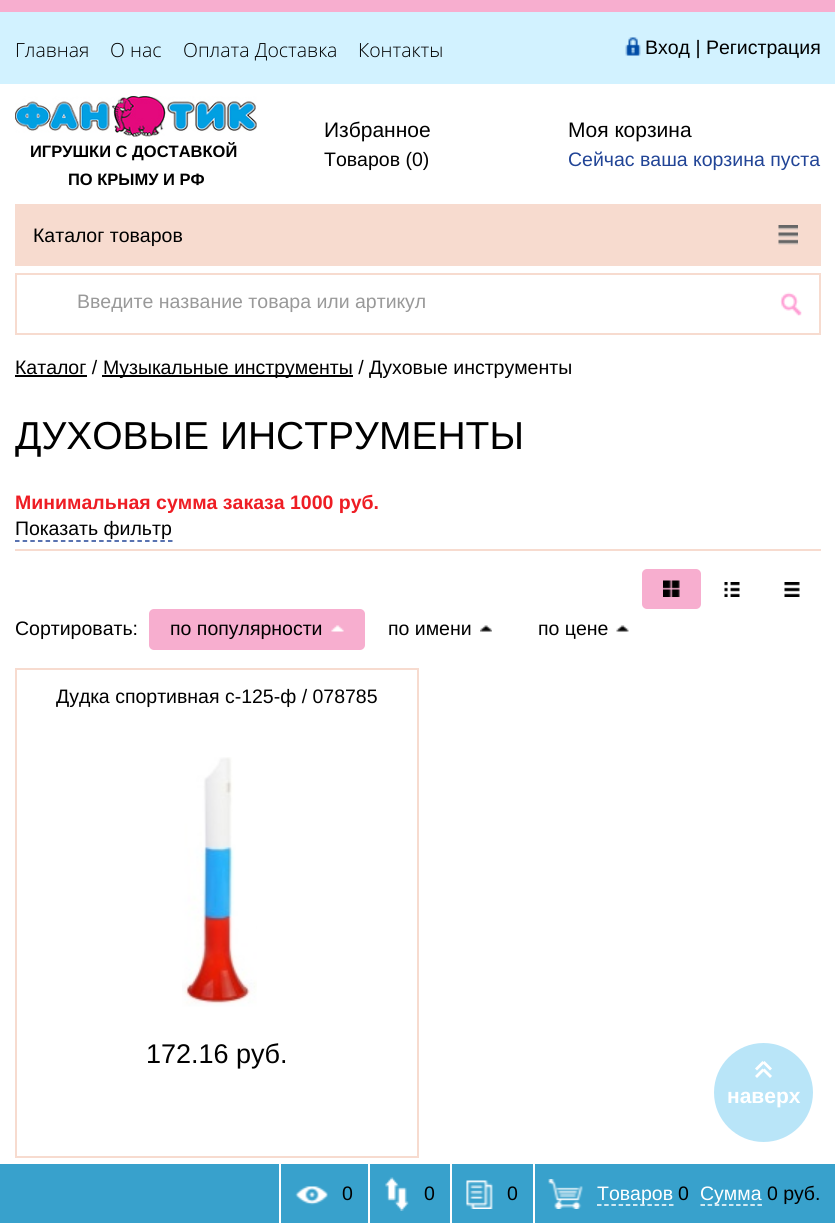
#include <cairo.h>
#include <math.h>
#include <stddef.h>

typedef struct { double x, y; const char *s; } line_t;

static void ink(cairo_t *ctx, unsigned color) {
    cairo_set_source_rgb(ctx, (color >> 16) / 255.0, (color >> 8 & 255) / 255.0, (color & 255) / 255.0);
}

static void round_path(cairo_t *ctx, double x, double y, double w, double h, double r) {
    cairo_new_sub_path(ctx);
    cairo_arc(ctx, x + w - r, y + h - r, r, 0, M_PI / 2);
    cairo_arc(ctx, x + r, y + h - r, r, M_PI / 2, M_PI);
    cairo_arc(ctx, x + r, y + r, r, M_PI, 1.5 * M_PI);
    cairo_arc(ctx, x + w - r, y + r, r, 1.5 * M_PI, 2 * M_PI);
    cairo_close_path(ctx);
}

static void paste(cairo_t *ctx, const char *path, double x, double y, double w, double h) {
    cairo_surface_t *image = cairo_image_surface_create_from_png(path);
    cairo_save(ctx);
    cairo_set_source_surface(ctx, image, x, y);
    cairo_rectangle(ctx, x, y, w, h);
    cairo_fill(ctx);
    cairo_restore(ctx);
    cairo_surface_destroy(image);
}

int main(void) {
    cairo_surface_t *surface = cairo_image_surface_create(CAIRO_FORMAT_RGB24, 835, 1223);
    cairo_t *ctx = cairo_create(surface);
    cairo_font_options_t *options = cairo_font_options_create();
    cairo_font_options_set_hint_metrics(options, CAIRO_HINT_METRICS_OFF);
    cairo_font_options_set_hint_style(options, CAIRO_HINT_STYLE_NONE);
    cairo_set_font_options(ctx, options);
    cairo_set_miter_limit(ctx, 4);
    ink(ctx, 0xFFFFFF);
    cairo_paint(ctx);
    ink(ctx, 0xF7AECF);
    cairo_rectangle(ctx, 0, 0, 835, 12);
    cairo_fill(ctx);
    ink(ctx, 0xD2F2FF);
    cairo_rectangle(ctx, 0, 12, 835, 72);
    cairo_fill(ctx);
    cairo_select_font_face(ctx, "Open Sans Light", CAIRO_FONT_SLANT_NORMAL, CAIRO_FONT_WEIGHT_NORMAL);
    cairo_set_font_size(ctx, 19.5);
    ink(ctx, 0x000000);
    {
        static const line_t items[] = {
            {15, 57, "Главная"},
            {110, 57, "О нас"},
            {183, 57, "Оплата Доставка"},
            {358, 57, "Контакты"},
        };
        for (size_t i = 0; i < sizeof items / sizeof *items; i++) {
            cairo_move_to(ctx, items[i].x, items[i].y);
            cairo_show_text(ctx, items[i].s);
        }
    }
    paste(ctx, "media/1.png", 625, 37, 16, 19);
    cairo_select_font_face(ctx, "Liberation Sans", CAIRO_FONT_SLANT_NORMAL, CAIRO_FONT_WEIGHT_NORMAL);
    cairo_move_to(ctx, 645, 54);
    cairo_show_text(ctx, "Вход | Регистрация");
    paste(ctx, "media/2.png", 15, 96, 242, 41);
    cairo_select_font_face(ctx, "Liberation Sans", CAIRO_FONT_SLANT_NORMAL, CAIRO_FONT_WEIGHT_BOLD);
    cairo_set_font_size(ctx, 16.5);
    cairo_move_to(ctx, 30, 157);
    cairo_show_text(ctx, "ИГРУШКИ С ДОСТАВКОЙ");
    cairo_move_to(ctx, 68, 185);
    cairo_show_text(ctx, "ПО КРЫМУ И РФ");
    cairo_select_font_face(ctx, "Liberation Sans", CAIRO_FONT_SLANT_NORMAL, CAIRO_FONT_WEIGHT_NORMAL);
    cairo_set_font_size(ctx, 21);
    cairo_move_to(ctx, 324, 137);
    cairo_show_text(ctx, "Избранное");
    cairo_set_font_size(ctx, 19.5);
    cairo_move_to(ctx, 324, 166);
    cairo_show_text(ctx, "Товаров (0)");
    cairo_set_font_size(ctx, 21);
    cairo_move_to(ctx, 568, 137);
    cairo_show_text(ctx, "Моя корзина");
    cairo_set_font_size(ctx, 19.5);
    ink(ctx, 0x214496);
    cairo_move_to(ctx, 568, 166);
    cairo_show_text(ctx, "Сейчас ваша корзина пуста");
    ink(ctx, 0xF7DBCF);
    cairo_rectangle(ctx, 15, 204, 806, 62);
    cairo_fill(ctx);
    ink(ctx, 0x000000);
    cairo_move_to(ctx, 33, 242);
    cairo_show_text(ctx, "Каталог товаров");
    paste(ctx, "media/3.png", 778, 225, 20, 20);
    cairo_rectangle(ctx, 16, 274, 804, 60);
    ink(ctx, 0xF7DBCF);
    cairo_stroke(ctx);
    ink(ctx, 0x999999);
    cairo_move_to(ctx, 77, 308);
    cairo_show_text(ctx, "Введите название товара или артикул");
    paste(ctx, "media/4.png", 780, 292, 22, 24);
    ink(ctx, 0x000000);
    cairo_move_to(ctx, 15, 374);
    cairo_show_text(ctx, "Каталог /");
    cairo_rectangle(ctx, 15, 375, 72, 2);
    cairo_fill(ctx);
    cairo_rectangle(ctx, 102, 375, 251, 2);
    cairo_fill(ctx);
    cairo_move_to(ctx, 103, 374);
    cairo_show_text(ctx, "Музыкальные инструменты / Духовые инструменты");
    cairo_set_font_size(ctx, 39);
    cairo_move_to(ctx, 15, 449);
    cairo_show_text(ctx, "ДУХОВЫЕ ИНСТРУМЕНТЫ");
    cairo_select_font_face(ctx, "Liberation Sans", CAIRO_FONT_SLANT_NORMAL, CAIRO_FONT_WEIGHT_BOLD);
    cairo_set_font_size(ctx, 19.5);
    ink(ctx, 0xEE1D24);
    cairo_move_to(ctx, 15, 509);
    cairo_show_text(ctx, "Минимальная сумма заказа 1000 руб.");
    cairo_select_font_face(ctx, "Liberation Sans", CAIRO_FONT_SLANT_NORMAL, CAIRO_FONT_WEIGHT_NORMAL);
    ink(ctx, 0x000000);
    cairo_move_to(ctx, 15, 535);
    cairo_show_text(ctx, "Показать фильтр");
    cairo_new_path(ctx);
    cairo_move_to(ctx, 15, 541);
    cairo_line_to(ctx, 172.5, 541);
    ink(ctx, 0x214496);
    cairo_set_line_width(ctx, 1.5);
    cairo_set_dash(ctx, (double[]){4.5, 3.15}, 2, 0);
    cairo_stroke(ctx);
    ink(ctx, 0xF7DBCF);
    cairo_rectangle(ctx, 15, 549, 806, 2);
    cairo_fill(ctx);
    ink(ctx, 0xF7AECF);
    round_path(ctx, 642, 569, 59, 40, 5);
    cairo_fill(ctx);
    paste(ctx, "media/5.png", 663, 580, 17, 17);
    paste(ctx, "media/6.png", 724, 582, 16, 15);
    paste(ctx, "media/7.png", 784, 582, 16, 15);
    ink(ctx, 0x000000);
    cairo_move_to(ctx, 15, 635);
    cairo_show_text(ctx, "Сортировать:");
    ink(ctx, 0xF7AECF);
    round_path(ctx, 149, 609, 216, 41, 5);
    cairo_fill(ctx);
    ink(ctx, 0x000000);
    cairo_move_to(ctx, 170, 635);
    cairo_show_text(ctx, "по популярности");
    paste(ctx, "media/8.png", 331, 625, 13, 7);
    cairo_move_to(ctx, 388, 635);
    cairo_show_text(ctx, "по имени");
    paste(ctx, "media/9.png", 480, 625, 12, 7);
    cairo_move_to(ctx, 538, 635);
    cairo_show_text(ctx, "по цене");
    paste(ctx, "media/10.png", 616, 625, 13, 7);
    cairo_rectangle(ctx, 16, 669, 402, 488);
    ink(ctx, 0xF7DBCF);
    cairo_set_line_width(ctx, 2);
    cairo_set_dash(ctx, NULL, 0, 0);
    cairo_stroke(ctx);
    ink(ctx, 0x000000);
    cairo_move_to(ctx, 56, 703);
    cairo_show_text(ctx, "Дудка спортивная с-125-ф / 078785");
    paste(ctx, "media/11.png", 182, 757, 75, 250);
    cairo_set_font_size(ctx, 27);
    cairo_move_to(ctx, 146, 1063);
    cairo_show_text(ctx, "172.16 руб.");
    ink(ctx, 0xB9E5F8);
    cairo_new_path(ctx);
    cairo_arc(ctx, 763.5, 1092.5, 49.5, 0, 2 * M_PI);
    cairo_fill(ctx);
    ink(ctx, 0xFFFFFF);
    cairo_new_path(ctx);
    cairo_move_to(ctx, 762.5, 1061);
    cairo_line_to(ctx, 764.5, 1063);
    cairo_line_to(ctx, 757, 1070.5);
    cairo_line_to(ctx, 755, 1068.5);
    cairo_close_path(ctx);
    cairo_fill(ctx);
    cairo_new_path(ctx);
    cairo_move_to(ctx, 762.5, 1063);
    cairo_line_to(ctx, 764.5, 1061);
    cairo_line_to(ctx, 772, 1068.5);
    cairo_line_to(ctx, 770, 1070.5);
    cairo_close_path(ctx);
    cairo_fill(ctx);
    cairo_new_path(ctx);
    cairo_move_to(ctx, 762.5, 1068.5);
    cairo_line_to(ctx, 764.5, 1070.5);
    cairo_line_to(ctx, 757, 1078);
    cairo_line_to(ctx, 755, 1076);
    cairo_close_path(ctx);
    cairo_fill(ctx);
    cairo_new_path(ctx);
    cairo_move_to(ctx, 762.5, 1070.5);
    cairo_line_to(ctx, 764.5, 1068.5);
    cairo_line_to(ctx, 772, 1076);
    cairo_line_to(ctx, 770, 1078);
    cairo_close_path(ctx);
    cairo_fill(ctx);
    cairo_select_font_face(ctx, "Liberation Sans", CAIRO_FONT_SLANT_NORMAL, CAIRO_FONT_WEIGHT_BOLD);
    cairo_set_font_size(ctx, 21);
    cairo_move_to(ctx, 727, 1103);
    cairo_show_text(ctx, "наверх");
    ink(ctx, 0x38A1CC);
    cairo_rectangle(ctx, 0, 1164, 835, 59);
    cairo_fill(ctx);
    ink(ctx, 0xFFFFFF);
    cairo_rectangle(ctx, 279, 1164, 2, 59);
    cairo_fill(ctx);
    paste(ctx, "media/12.png", 295, 1186, 33, 19);
    cairo_select_font_face(ctx, "Liberation Sans", CAIRO_FONT_SLANT_NORMAL, CAIRO_FONT_WEIGHT_NORMAL);
    cairo_set_font_size(ctx, 19.5);
    ink(ctx, 0x000000);
    cairo_move_to(ctx, 342, 1200);
    cairo_show_text(ctx, "0");
    ink(ctx, 0xFFFFFF);
    cairo_rectangle(ctx, 368, 1164, 2, 59);
    cairo_fill(ctx);
    paste(ctx, "media/13.png", 385, 1177, 24, 34);
    ink(ctx, 0x000000);
    cairo_move_to(ctx, 424, 1200);
    cairo_show_text(ctx, "0");
    ink(ctx, 0xFFFFFF);
    cairo_rectangle(ctx, 450, 1164, 2, 59);
    cairo_fill(ctx);
    paste(ctx, "media/14.png", 466, 1180, 27, 29);
    ink(ctx, 0x000000);
    cairo_move_to(ctx, 507, 1200);
    cairo_show_text(ctx, "0");
    ink(ctx, 0xFFFFFF);
    cairo_rectangle(ctx, 533, 1164, 2, 59);
    cairo_fill(ctx);
    paste(ctx, "media/15.png", 548, 1179, 35, 30);
    cairo_new_path(ctx);
    cairo_move_to(ctx, 597, 1205);
    cairo_line_to(ctx, 673.5, 1205);
    cairo_set_line_width(ctx, 1.5);
    cairo_set_dash(ctx, (double[]){4.5, 2.7}, 2, 0);
    cairo_stroke(ctx);
    cairo_move_to(ctx, 597, 1200);
    cairo_show_text(ctx, "Товаров");
    ink(ctx, 0x000000);
    cairo_move_to(ctx, 678, 1200);
    cairo_show_text(ctx, "0");
    cairo_new_path(ctx);
    cairo_move_to(ctx, 700.5, 1205);
    cairo_line_to(ctx, 762, 1205);
    ink(ctx, 0xFFFFFF);
    cairo_set_dash(ctx, (double[]){4.5, 2.62}, 2, 0);
    cairo_stroke(ctx);
    cairo_move_to(ctx, 700, 1200);
    cairo_show_text(ctx, "Сумма");
    ink(ctx, 0x000000);
    cairo_move_to(ctx, 767, 1200);
    cairo_show_text(ctx, "0 руб.");
    cairo_surface_write_to_png(surface, "image.png");
    cairo_font_options_destroy(options);
    cairo_destroy(ctx);
    cairo_surface_destroy(surface);
    return 0;
}
